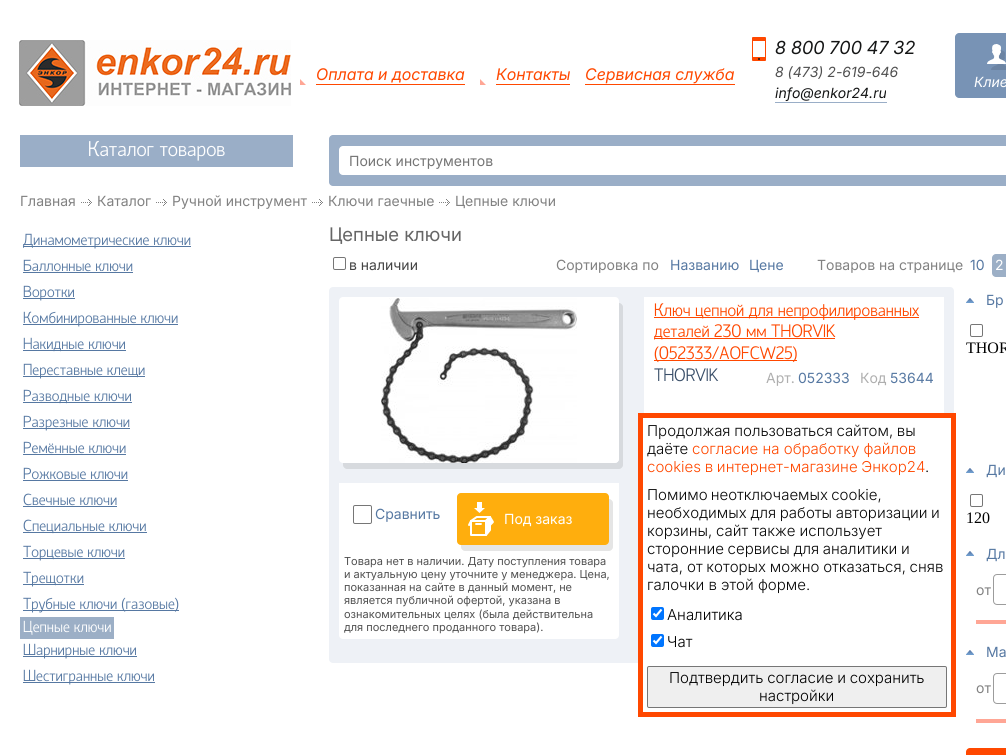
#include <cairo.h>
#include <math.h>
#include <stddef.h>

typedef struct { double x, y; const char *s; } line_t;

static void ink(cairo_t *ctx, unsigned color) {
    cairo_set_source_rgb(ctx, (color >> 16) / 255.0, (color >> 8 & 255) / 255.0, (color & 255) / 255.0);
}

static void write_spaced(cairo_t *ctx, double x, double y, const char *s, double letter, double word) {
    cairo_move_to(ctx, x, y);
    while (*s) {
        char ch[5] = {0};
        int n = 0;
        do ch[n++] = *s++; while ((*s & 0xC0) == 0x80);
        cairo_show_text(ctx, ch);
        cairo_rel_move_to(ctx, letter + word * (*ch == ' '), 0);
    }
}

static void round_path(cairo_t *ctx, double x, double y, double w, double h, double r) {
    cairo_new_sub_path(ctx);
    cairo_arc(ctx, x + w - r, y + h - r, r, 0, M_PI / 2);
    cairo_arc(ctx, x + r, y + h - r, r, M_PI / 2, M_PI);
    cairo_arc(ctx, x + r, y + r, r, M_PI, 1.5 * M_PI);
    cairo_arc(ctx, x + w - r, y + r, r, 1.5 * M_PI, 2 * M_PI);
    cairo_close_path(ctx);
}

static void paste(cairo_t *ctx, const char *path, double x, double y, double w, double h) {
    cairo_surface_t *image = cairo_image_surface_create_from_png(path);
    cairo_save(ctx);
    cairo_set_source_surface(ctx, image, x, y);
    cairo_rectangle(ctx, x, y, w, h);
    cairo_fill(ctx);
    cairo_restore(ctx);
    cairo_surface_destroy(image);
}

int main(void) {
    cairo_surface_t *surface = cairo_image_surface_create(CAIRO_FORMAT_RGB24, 1006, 755);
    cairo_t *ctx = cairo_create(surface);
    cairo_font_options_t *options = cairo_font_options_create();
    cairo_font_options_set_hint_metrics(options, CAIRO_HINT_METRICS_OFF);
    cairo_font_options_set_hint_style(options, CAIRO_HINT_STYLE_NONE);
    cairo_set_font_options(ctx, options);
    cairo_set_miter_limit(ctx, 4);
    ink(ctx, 0xFFFFFF);
    cairo_paint(ctx);
    paste(ctx, "media/1.png", 19, 40, 272, 66);
    paste(ctx, "media/2.png", 300, 79, 6, 6);
    ink(ctx, 0xFF4800);
    cairo_rectangle(ctx, 316, 84, 149, 1);
    cairo_fill(ctx);
    cairo_select_font_face(ctx, "Inter", CAIRO_FONT_SLANT_ITALIC, CAIRO_FONT_WEIGHT_NORMAL);
    cairo_set_font_size(ctx, 16);
    cairo_move_to(ctx, 316, 80);
    cairo_show_text(ctx, "Оплата и доставка");
    cairo_rectangle(ctx, 496, 84, 74, 1);
    cairo_fill(ctx);
    cairo_move_to(ctx, 496, 80);
    cairo_show_text(ctx, "Контакты");
    paste(ctx, "media/2.png", 480, 79, 6, 6);
    cairo_rectangle(ctx, 585, 84, 150, 1);
    cairo_fill(ctx);
    cairo_move_to(ctx, 585, 80);
    cairo_show_text(ctx, "Сервисная служба");
    paste(ctx, "media/3.png", 752, 37, 14, 24);
    cairo_select_font_face(ctx, "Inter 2", CAIRO_FONT_SLANT_ITALIC, CAIRO_FONT_WEIGHT_NORMAL);
    cairo_set_font_size(ctx, 18);
    ink(ctx, 0x141515);
    cairo_move_to(ctx, 775, 54);
    cairo_show_text(ctx, "8 800 700 47 32");
    cairo_select_font_face(ctx, "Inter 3", CAIRO_FONT_SLANT_ITALIC, CAIRO_FONT_WEIGHT_NORMAL);
    cairo_set_font_size(ctx, 14);
    ink(ctx, 0x505050);
    cairo_move_to(ctx, 775, 77);
    cairo_show_text(ctx, "8 (473) 2-619-646");
    ink(ctx, 0x9AAEC7);
    cairo_rectangle(ctx, 775, 102, 112, 1);
    cairo_fill(ctx);
    ink(ctx, 0x141515);
    cairo_move_to(ctx, 775, 98);
    cairo_show_text(ctx, "info@enkor24.ru");
    ink(ctx, 0x7893B5);
    cairo_new_path(ctx);
    cairo_move_to(ctx, 959, 33);
    cairo_line_to(ctx, 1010, 33);
    cairo_line_to(ctx, 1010, 98);
    cairo_line_to(ctx, 959, 98);
    cairo_curve_to(ctx, 957, 98, 955, 96, 955, 94);
    cairo_line_to(ctx, 955, 37);
    cairo_curve_to(ctx, 955, 35, 957, 33, 959, 33);
    cairo_close_path(ctx);
    cairo_fill(ctx);
    paste(ctx, "media/4.png", 987, 44, 19, 26);
    ink(ctx, 0xFFFFFF);
    cairo_move_to(ctx, 974, 87);
    cairo_show_text(ctx, "Клие");
    ink(ctx, 0x9AAEC7);
    cairo_rectangle(ctx, 20, 135, 273, 32);
    cairo_fill(ctx);
    cairo_select_font_face(ctx, "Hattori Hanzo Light", CAIRO_FONT_SLANT_NORMAL, CAIRO_FONT_WEIGHT_NORMAL);
    cairo_set_font_size(ctx, 21.25);
    ink(ctx, 0xFFFFFF);
    cairo_move_to(ctx, 88, 156);
    cairo_show_text(ctx, "Каталог товаров");
    ink(ctx, 0x9AAEC7);
    round_path(ctx, 329, 135, 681, 51, 4);
    cairo_fill(ctx);
    ink(ctx, 0xFFFFFF);
    round_path(ctx, 339, 146, 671, 29, 4);
    cairo_fill(ctx);
    cairo_select_font_face(ctx, "Inter", CAIRO_FONT_SLANT_NORMAL, CAIRO_FONT_WEIGHT_NORMAL);
    cairo_set_font_size(ctx, 14);
    ink(ctx, 0x757575);
    cairo_move_to(ctx, 349, 166);
    cairo_show_text(ctx, "Поиск инструментов");
    ink(ctx, 0x828282);
    cairo_move_to(ctx, 20, 206);
    cairo_show_text(ctx, "Главная");
    paste(ctx, "media/5.png", 81, 199, 11, 7);
    cairo_move_to(ctx, 97, 206);
    cairo_show_text(ctx, "Каталог");
    paste(ctx, "media/5.png", 156, 199, 11, 7);
    cairo_move_to(ctx, 172, 206);
    cairo_show_text(ctx, "Ручной инструмент");
    paste(ctx, "media/5.png", 312, 199, 11, 7);
    cairo_move_to(ctx, 328, 206);
    cairo_show_text(ctx, "Ключи гаечные");
    paste(ctx, "media/5.png", 439, 199, 11, 7);
    cairo_move_to(ctx, 455, 206);
    cairo_show_text(ctx, "Цепные ключи");
    ink(ctx, 0x5678A2);
    cairo_rectangle(ctx, 23, 246, 168, 1);
    cairo_fill(ctx);
    cairo_select_font_face(ctx, "Hattori Hanzo Light", CAIRO_FONT_SLANT_NORMAL, CAIRO_FONT_WEIGHT_NORMAL);
    cairo_set_font_size(ctx, 16);
    cairo_move_to(ctx, 23, 245);
    cairo_show_text(ctx, "Динамометрические ключи");
    cairo_move_to(ctx, 23, 271);
    cairo_show_text(ctx, "Баллонные ключи");
    cairo_rectangle(ctx, 23, 272, 110, 1);
    cairo_fill(ctx);
    cairo_rectangle(ctx, 23, 298, 52, 1);
    cairo_fill(ctx);
    cairo_move_to(ctx, 23, 297);
    cairo_show_text(ctx, "Воротки");
    cairo_rectangle(ctx, 23, 324, 155, 1);
    cairo_fill(ctx);
    cairo_move_to(ctx, 23, 323);
    cairo_show_text(ctx, "Комбинированные ключи");
    cairo_rectangle(ctx, 23, 350, 103, 1);
    cairo_fill(ctx);
    cairo_move_to(ctx, 23, 349);
    cairo_show_text(ctx, "Накидные ключи");
    cairo_rectangle(ctx, 23, 376, 122, 1);
    cairo_fill(ctx);
    cairo_move_to(ctx, 23, 375);
    cairo_show_text(ctx, "Переставные клещи");
    cairo_rectangle(ctx, 23, 402, 109, 1);
    cairo_fill(ctx);
    cairo_move_to(ctx, 23, 401);
    cairo_show_text(ctx, "Разводные ключи");
    cairo_rectangle(ctx, 23, 428, 107, 1);
    cairo_fill(ctx);
    cairo_move_to(ctx, 23, 427);
    cairo_show_text(ctx, "Разрезные ключи");
    cairo_move_to(ctx, 23, 453);
    cairo_show_text(ctx, "Ремённые ключи");
    cairo_rectangle(ctx, 23, 454, 103, 1);
    cairo_fill(ctx);
    cairo_move_to(ctx, 23, 479);
    cairo_show_text(ctx, "Рожковые ключи");
    cairo_rectangle(ctx, 23, 480, 105, 1);
    cairo_fill(ctx);
    cairo_move_to(ctx, 23, 505);
    cairo_show_text(ctx, "Свечные ключи");
    cairo_rectangle(ctx, 23, 506, 94, 1);
    cairo_fill(ctx);
    cairo_rectangle(ctx, 23, 532, 124, 1);
    cairo_fill(ctx);
    cairo_move_to(ctx, 23, 531);
    cairo_show_text(ctx, "Специальные ключи");
    cairo_rectangle(ctx, 23, 558, 102, 1);
    cairo_fill(ctx);
    cairo_move_to(ctx, 23, 557);
    cairo_show_text(ctx, "Торцевые ключи");
    cairo_rectangle(ctx, 23, 584, 61, 1);
    cairo_fill(ctx);
    cairo_move_to(ctx, 23, 583);
    cairo_show_text(ctx, "Трещотки");
    cairo_rectangle(ctx, 23, 610, 156, 1);
    cairo_fill(ctx);
    cairo_move_to(ctx, 23, 609);
    cairo_show_text(ctx, "Трубные ключи (газовые)");
    ink(ctx, 0x9CAFC6);
    cairo_rectangle(ctx, 20, 617, 94, 22);
    cairo_fill(ctx);
    ink(ctx, 0xFFFFFF);
    cairo_move_to(ctx, 23, 632);
    cairo_show_text(ctx, "Цепные ключи");
    ink(ctx, 0x5678A2);
    cairo_rectangle(ctx, 23, 656, 114, 1);
    cairo_fill(ctx);
    cairo_move_to(ctx, 23, 655);
    cairo_show_text(ctx, "Шарнирные ключи");
    cairo_rectangle(ctx, 23, 682, 132, 1);
    cairo_fill(ctx);
    cairo_move_to(ctx, 23, 681);
    cairo_show_text(ctx, "Шестигранные ключи");
    cairo_select_font_face(ctx, "Inter 2", CAIRO_FONT_SLANT_NORMAL, CAIRO_FONT_WEIGHT_NORMAL);
    cairo_set_font_size(ctx, 18.75);
    ink(ctx, 0x666666);
    cairo_move_to(ctx, 329, 241);
    cairo_show_text(ctx, "Цепные ключи");
    round_path(ctx, 333.5, 257.5, 12, 12, 1.5);
    ink(ctx, 0x767676);
    cairo_set_line_width(ctx, 1);
    cairo_stroke(ctx);
    cairo_select_font_face(ctx, "Inter", CAIRO_FONT_SLANT_NORMAL, CAIRO_FONT_WEIGHT_NORMAL);
    cairo_set_font_size(ctx, 14);
    ink(ctx, 0x444444);
    cairo_move_to(ctx, 349, 270);
    cairo_show_text(ctx, "в наличии");
    ink(ctx, 0x828282);
    cairo_move_to(ctx, 556, 270);
    cairo_show_text(ctx, "Сортировка по");
    ink(ctx, 0x5678A2);
    cairo_move_to(ctx, 670, 270);
    cairo_show_text(ctx, "Названию");
    cairo_move_to(ctx, 749, 270);
    cairo_show_text(ctx, "Цене");
    ink(ctx, 0x828282);
    cairo_move_to(ctx, 817, 270);
    cairo_show_text(ctx, "Товаров на странице");
    ink(ctx, 0x5678A2);
    cairo_move_to(ctx, 970, 270);
    cairo_show_text(ctx, "10");
    ink(ctx, 0x9CAFC6);
    round_path(ctx, 992, 254, 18, 23, 4);
    cairo_fill(ctx);
    ink(ctx, 0xFFFFFF);
    cairo_move_to(ctx, 995, 270);
    cairo_show_text(ctx, "2");
    ink(ctx, 0xEEF1F6);
    round_path(ctx, 329, 287, 625, 376, 4);
    cairo_fill(ctx);
    ink(ctx, 0xFFFFFF);
    cairo_rectangle(ctx, 644, 297, 300, 116);
    cairo_fill(ctx);
    ink(ctx, 0xFF4800);
    cairo_rectangle(ctx, 654, 317, 265, 1);
    cairo_fill(ctx);
    cairo_select_font_face(ctx, "Hattori Hanzo Light", CAIRO_FONT_SLANT_NORMAL, CAIRO_FONT_WEIGHT_NORMAL);
    cairo_set_font_size(ctx, 18);
    cairo_move_to(ctx, 654, 316);
    cairo_show_text(ctx, "Ключ цепной для непрофилированных");
    cairo_rectangle(ctx, 654, 338, 181, 1);
    cairo_fill(ctx);
    cairo_move_to(ctx, 654, 337);
    cairo_show_text(ctx, "деталей 230 мм THORVIK");
    cairo_rectangle(ctx, 654, 360, 143, 1);
    cairo_fill(ctx);
    cairo_move_to(ctx, 654, 359);
    cairo_show_text(ctx, "(052333/AOFCW25)");
    ink(ctx, 0x394E68);
    cairo_move_to(ctx, 654, 381);
    cairo_show_text(ctx, "THORVIK");
    cairo_select_font_face(ctx, "Inter", CAIRO_FONT_SLANT_NORMAL, CAIRO_FONT_WEIGHT_NORMAL);
    cairo_set_font_size(ctx, 14);
    ink(ctx, 0xAFAFAF);
    cairo_move_to(ctx, 766, 383);
    cairo_show_text(ctx, "Арт.");
    ink(ctx, 0x5678A2);
    cairo_move_to(ctx, 798, 383);
    cairo_show_text(ctx, "052333");
    ink(ctx, 0xAFAFAF);
    cairo_move_to(ctx, 860, 383);
    cairo_show_text(ctx, "Код");
    ink(ctx, 0x5678A2);
    cairo_move_to(ctx, 890, 383);
    cairo_show_text(ctx, "53644");
    ink(ctx, 0xD7DADE);
    cairo_new_path(ctx);
    cairo_move_to(ctx, 343, 463);
    cairo_line_to(ctx, 343, 465);
    cairo_curve_to(ctx, 343, 467, 345, 469, 347, 469);
    cairo_line_to(ctx, 619, 469);
    cairo_curve_to(ctx, 621, 469, 623, 467, 623, 465);
    cairo_line_to(ctx, 623, 307);
    cairo_curve_to(ctx, 623, 305, 621, 303, 619, 303);
    cairo_line_to(ctx, 619, 459);
    cairo_curve_to(ctx, 619, 461, 617, 463, 615, 463);
    cairo_close_path(ctx);
    cairo_fill(ctx);
    ink(ctx, 0xFFFFFF);
    round_path(ctx, 339, 297, 280, 166, 4);
    cairo_fill(ctx);
    paste(ctx, "media/6.png", 381, 298, 196, 165);
    round_path(ctx, 339, 533, 280, 106, 4);
    cairo_fill(ctx);
    cairo_rectangle(ctx, 339, 483, 280, 53);
    cairo_fill(ctx);
    round_path(ctx, 353.5, 505.5, 18, 18, 1.5);
    ink(ctx, 0x767676);
    cairo_stroke(ctx);
    ink(ctx, 0x5678A2);
    cairo_move_to(ctx, 375, 519);
    cairo_show_text(ctx, "Сравнить");
    ink(ctx, 0xE5E5E5);
    cairo_new_path(ctx);
    cairo_move_to(ctx, 461, 545);
    cairo_line_to(ctx, 461, 547);
    cairo_curve_to(ctx, 461, 549, 463, 551, 465, 551);
    cairo_line_to(ctx, 609, 551);
    cairo_curve_to(ctx, 611, 551, 613, 549, 613, 547);
    cairo_line_to(ctx, 613, 503);
    cairo_curve_to(ctx, 613, 501, 611, 499, 609, 499);
    cairo_line_to(ctx, 609, 541);
    cairo_curve_to(ctx, 609, 543, 607, 545, 605, 545);
    cairo_close_path(ctx);
    cairo_fill(ctx);
    ink(ctx, 0xFFAE0D);
    round_path(ctx, 457, 493, 152, 52, 4);
    cairo_fill(ctx);
    paste(ctx, "media/7.png", 468, 502, 26, 34);
    ink(ctx, 0xFFFFFF);
    cairo_move_to(ctx, 504, 524);
    cairo_show_text(ctx, "Под заказ");
    cairo_set_font_size(ctx, 11);
    ink(ctx, 0x505050);
    {
        static const line_t items[] = {
            {344, 565, "Товара нет в наличии. Дату поступления товара"},
            {344, 578, "и актуальную цену уточните у менеджера. Цена,"},
            {344, 591, "показанная на сайте в данный момент, не"},
            {344, 604, "является публичной офертой, указана в"},
            {344, 618, "ознакомительных целях (была действительна"},
            {344, 631, "для последнего проданного товара)."},
        };
        for (size_t i = 0; i < sizeof items / sizeof *items; i++) {
            cairo_move_to(ctx, items[i].x, items[i].y);
            cairo_show_text(ctx, items[i].s);
        }
    }
    paste(ctx, "media/8.png", 966, 298, 8, 5);
    cairo_set_font_size(ctx, 14);
    ink(ctx, 0x5678A2);
    cairo_move_to(ctx, 986, 305);
    cairo_show_text(ctx, "Бр");
    round_path(ctx, 970.5, 324.5, 12, 12, 1.5);
    ink(ctx, 0x767676);
    cairo_stroke(ctx);
    cairo_select_font_face(ctx, "Liberation Serif", CAIRO_FONT_SLANT_NORMAL, CAIRO_FONT_WEIGHT_NORMAL);
    cairo_set_font_size(ctx, 16);
    ink(ctx, 0x000000);
    cairo_move_to(ctx, 966, 353);
    cairo_show_text(ctx, "THOR");
    paste(ctx, "media/8.png", 966, 468, 8, 5);
    cairo_select_font_face(ctx, "Inter", CAIRO_FONT_SLANT_NORMAL, CAIRO_FONT_WEIGHT_NORMAL);
    cairo_set_font_size(ctx, 14);
    ink(ctx, 0x5678A2);
    cairo_move_to(ctx, 986, 475);
    cairo_show_text(ctx, "Ди");
    round_path(ctx, 970.5, 494.5, 12, 12, 1.5);
    ink(ctx, 0x767676);
    cairo_stroke(ctx);
    cairo_select_font_face(ctx, "Liberation Serif", CAIRO_FONT_SLANT_NORMAL, CAIRO_FONT_WEIGHT_NORMAL);
    cairo_set_font_size(ctx, 16);
    ink(ctx, 0x000000);
    cairo_move_to(ctx, 966, 523);
    cairo_show_text(ctx, "120");
    paste(ctx, "media/8.png", 966, 551, 8, 5);
    cairo_select_font_face(ctx, "Inter", CAIRO_FONT_SLANT_NORMAL, CAIRO_FONT_WEIGHT_NORMAL);
    cairo_set_font_size(ctx, 14);
    ink(ctx, 0x5678A2);
    cairo_move_to(ctx, 986, 559);
    cairo_show_text(ctx, "Дл");
    ink(ctx, 0x828282);
    cairo_move_to(ctx, 976, 595);
    cairo_show_text(ctx, "от");
    round_path(ctx, 993.5, 574.5, 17, 30, 3.5);
    ink(ctx, 0x9C9C9C);
    cairo_stroke(ctx);
    ink(ctx, 0xFFA695);
    cairo_rectangle(ctx, 976, 620, 30, 4);
    cairo_fill(ctx);
    paste(ctx, "media/8.png", 966, 650, 8, 5);
    ink(ctx, 0x5678A2);
    cairo_move_to(ctx, 986, 657);
    cairo_show_text(ctx, "Ма");
    ink(ctx, 0x828282);
    cairo_move_to(ctx, 976, 693);
    cairo_show_text(ctx, "от");
    round_path(ctx, 993.5, 673.5, 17, 30, 3.5);
    ink(ctx, 0x9C9C9C);
    cairo_stroke(ctx);
    ink(ctx, 0xFFA695);
    cairo_rectangle(ctx, 976, 719, 30, 4);
    cairo_fill(ctx);
    ink(ctx, 0xFF4800);
    round_path(ctx, 966, 748, 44, 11, 4);
    cairo_fill(ctx);
    ink(ctx, 0xFFFFFF);
    cairo_rectangle(ctx, 643, 418, 308, 245);
    cairo_fill(ctx);
    cairo_rectangle(ctx, 640.5, 415.5, 313, 299);
    ink(ctx, 0xFF4800);
    cairo_set_line_width(ctx, 5);
    cairo_stroke(ctx);
    cairo_select_font_face(ctx, "Inter Light", CAIRO_FONT_SLANT_NORMAL, CAIRO_FONT_WEIGHT_NORMAL);
    cairo_set_font_size(ctx, 15);
    ink(ctx, 0x090909);
    write_spaced(ctx, 647, 436, "Продолжая пользоваться сайтом, вы", 0, -0.5);
    cairo_move_to(ctx, 647, 454);
    cairo_show_text(ctx, "даёте");
    ink(ctx, 0xFF4800);
    cairo_move_to(ctx, 692, 454);
    cairo_show_text(ctx, "согласие на обработку файлов");
    write_spaced(ctx, 647, 472, "cookies в интернет-магазине Энкор24", 0, -0.5);
    ink(ctx, 0x090909);
    cairo_move_to(ctx, 925, 472);
    cairo_show_text(ctx, ".");
    write_spaced(ctx, 647, 500, "Помимо неотключаемых cookie,", 0, -1);
    write_spaced(ctx, 647, 518, "необходимых для работы авторизации и", 0, -0.5);
    cairo_move_to(ctx, 647, 536);
    cairo_show_text(ctx, "корзины,");
    cairo_move_to(ctx, 716, 536);
    cairo_show_text(ctx, "сайт также использует");
    write_spaced(ctx, 647, 554, "сторонние сервисы для аналитики и", 0, -0.5);
    cairo_move_to(ctx, 647, 572);
    cairo_show_text(ctx, "чата,");
    write_spaced(ctx, 687, 572, "от которых можно отказаться, сняв", 0, -0.5);
    cairo_move_to(ctx, 647, 590);
    cairo_show_text(ctx, "галочки в этой форме.");
    ink(ctx, 0x0075FF);
    round_path(ctx, 651, 607, 13, 13, 2);
    cairo_fill(ctx);
    cairo_new_path(ctx);
    cairo_move_to(ctx, 653.5, 613.5);
    cairo_line_to(ctx, 656, 616);
    cairo_line_to(ctx, 661.5, 609.5);
    ink(ctx, 0xFFFFFF);
    cairo_set_line_width(ctx, 2.1);
    cairo_stroke(ctx);
    ink(ctx, 0x000000);
    cairo_move_to(ctx, 667, 620);
    cairo_show_text(ctx, "Аналитика");
    ink(ctx, 0x0075FF);
    round_path(ctx, 651, 634, 13, 13, 2);
    cairo_fill(ctx);
    cairo_new_path(ctx);
    cairo_move_to(ctx, 653.5, 640.5);
    cairo_line_to(ctx, 656, 643);
    cairo_line_to(ctx, 661.5, 636.5);
    ink(ctx, 0xFFFFFF);
    cairo_stroke(ctx);
    ink(ctx, 0x000000);
    cairo_move_to(ctx, 667, 647);
    cairo_show_text(ctx, "Чат");
    ink(ctx, 0xEFEFEF);
    round_path(ctx, 647.5, 666.5, 299, 41, 1.5);
    cairo_fill_preserve(ctx);
    ink(ctx, 0x767676);
    cairo_set_line_width(ctx, 1);
    cairo_stroke(ctx);
    ink(ctx, 0x000000);
    write_spaced(ctx, 669, 683, "Подтвердить согласие и сохранить", 0, -0.5);
    cairo_move_to(ctx, 759, 701);
    cairo_show_text(ctx, "настройки");
    cairo_surface_write_to_png(surface, "image.png");
    cairo_font_options_destroy(options);
    cairo_destroy(ctx);
    cairo_surface_destroy(surface);
    return 0;
}
